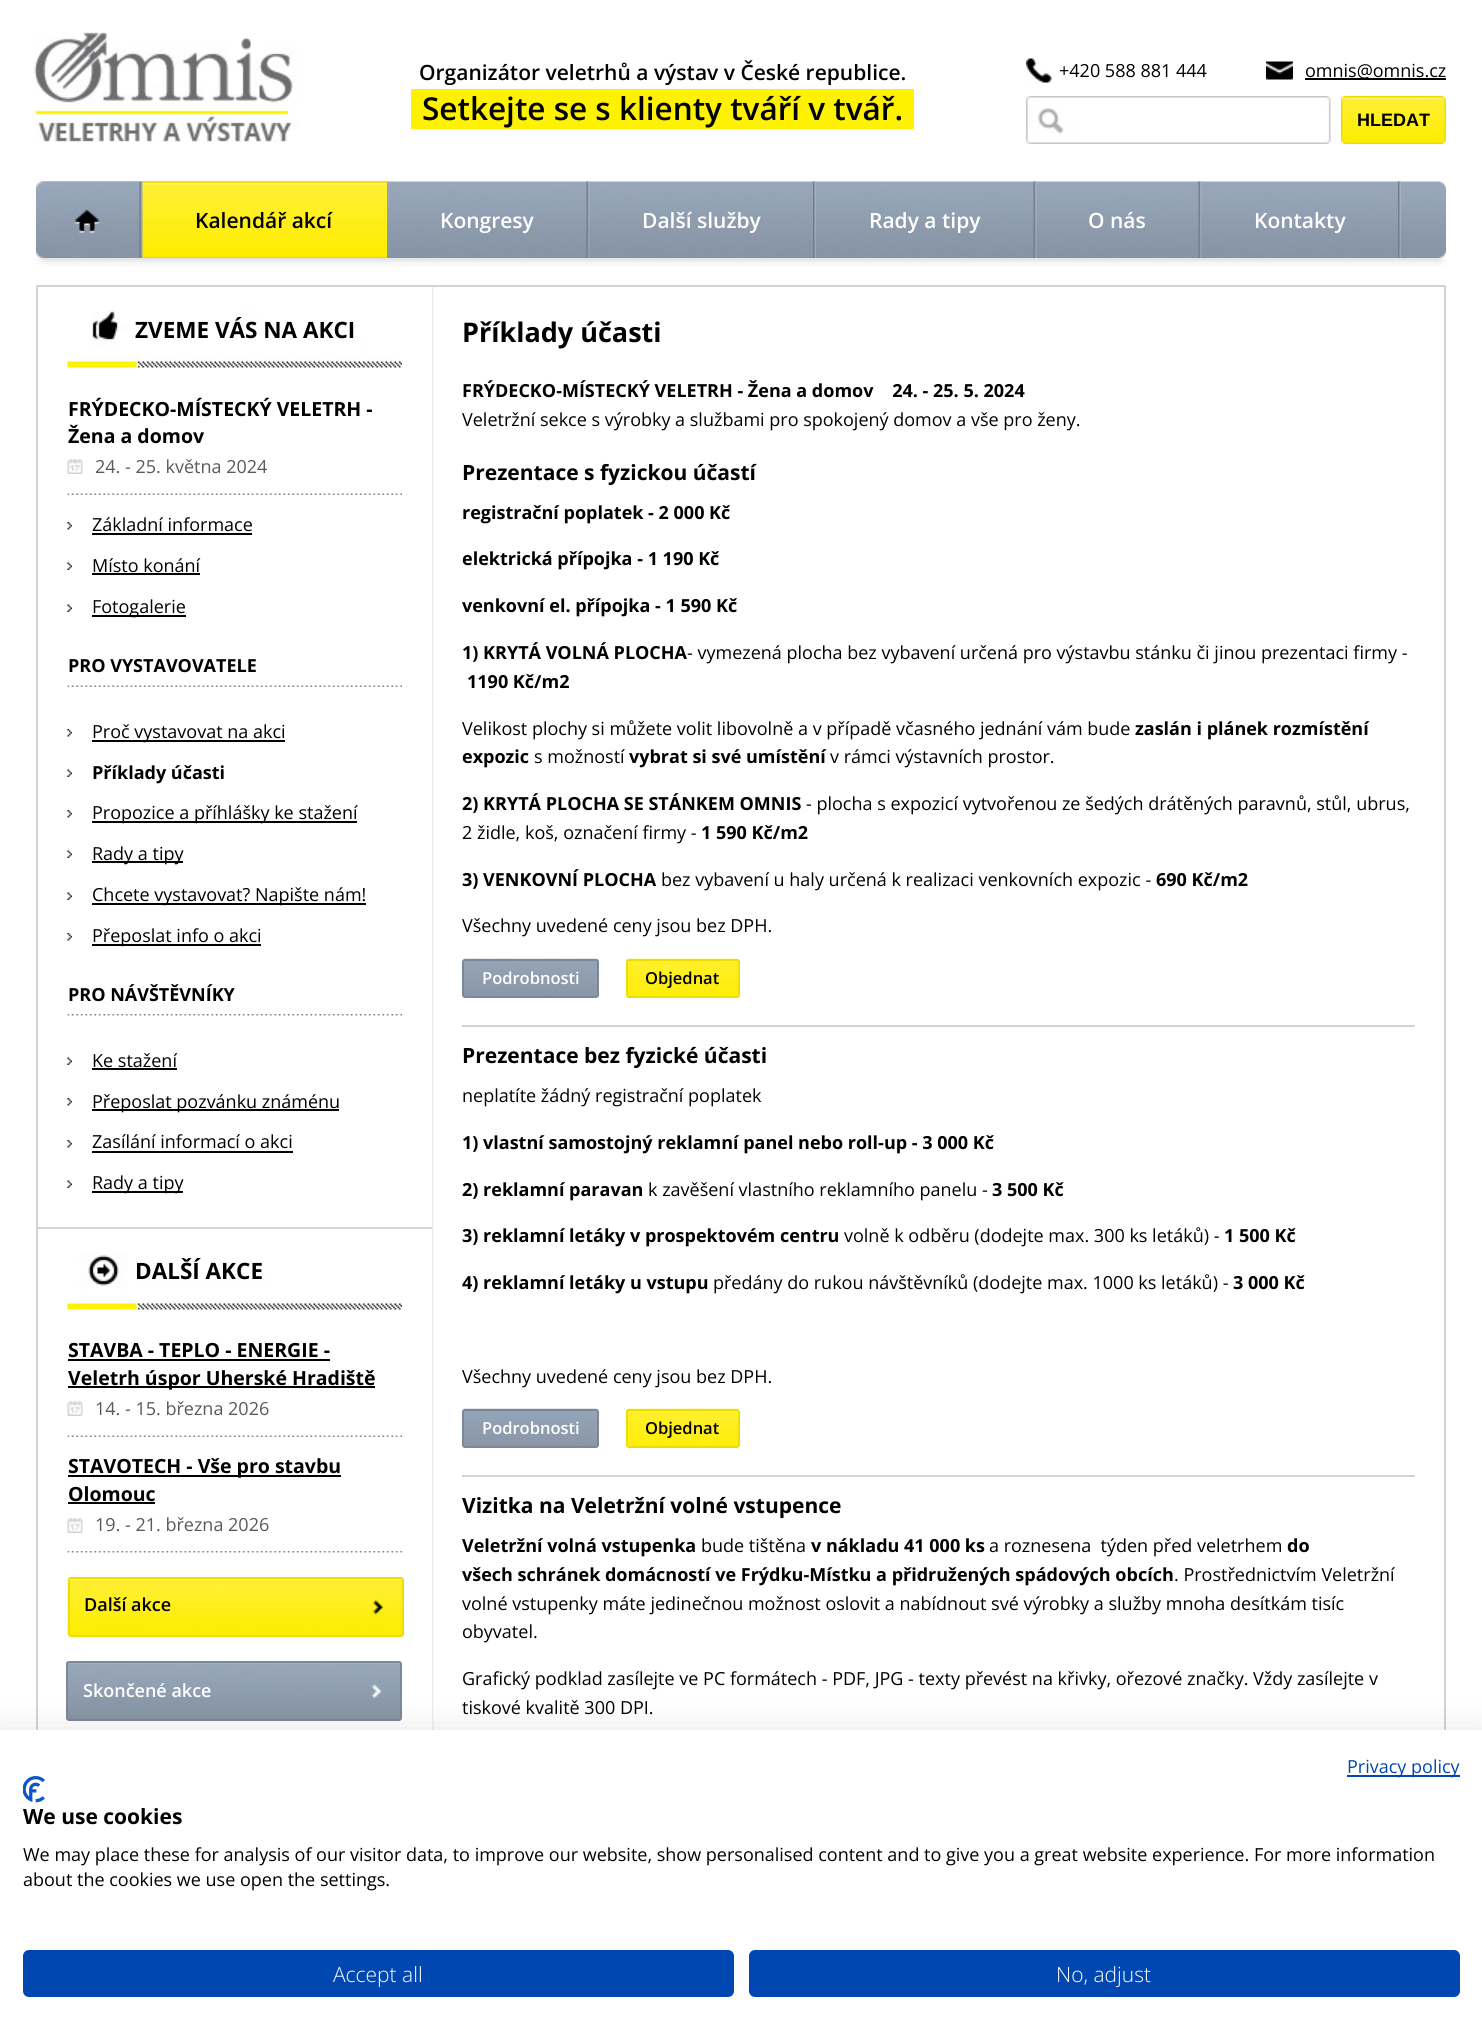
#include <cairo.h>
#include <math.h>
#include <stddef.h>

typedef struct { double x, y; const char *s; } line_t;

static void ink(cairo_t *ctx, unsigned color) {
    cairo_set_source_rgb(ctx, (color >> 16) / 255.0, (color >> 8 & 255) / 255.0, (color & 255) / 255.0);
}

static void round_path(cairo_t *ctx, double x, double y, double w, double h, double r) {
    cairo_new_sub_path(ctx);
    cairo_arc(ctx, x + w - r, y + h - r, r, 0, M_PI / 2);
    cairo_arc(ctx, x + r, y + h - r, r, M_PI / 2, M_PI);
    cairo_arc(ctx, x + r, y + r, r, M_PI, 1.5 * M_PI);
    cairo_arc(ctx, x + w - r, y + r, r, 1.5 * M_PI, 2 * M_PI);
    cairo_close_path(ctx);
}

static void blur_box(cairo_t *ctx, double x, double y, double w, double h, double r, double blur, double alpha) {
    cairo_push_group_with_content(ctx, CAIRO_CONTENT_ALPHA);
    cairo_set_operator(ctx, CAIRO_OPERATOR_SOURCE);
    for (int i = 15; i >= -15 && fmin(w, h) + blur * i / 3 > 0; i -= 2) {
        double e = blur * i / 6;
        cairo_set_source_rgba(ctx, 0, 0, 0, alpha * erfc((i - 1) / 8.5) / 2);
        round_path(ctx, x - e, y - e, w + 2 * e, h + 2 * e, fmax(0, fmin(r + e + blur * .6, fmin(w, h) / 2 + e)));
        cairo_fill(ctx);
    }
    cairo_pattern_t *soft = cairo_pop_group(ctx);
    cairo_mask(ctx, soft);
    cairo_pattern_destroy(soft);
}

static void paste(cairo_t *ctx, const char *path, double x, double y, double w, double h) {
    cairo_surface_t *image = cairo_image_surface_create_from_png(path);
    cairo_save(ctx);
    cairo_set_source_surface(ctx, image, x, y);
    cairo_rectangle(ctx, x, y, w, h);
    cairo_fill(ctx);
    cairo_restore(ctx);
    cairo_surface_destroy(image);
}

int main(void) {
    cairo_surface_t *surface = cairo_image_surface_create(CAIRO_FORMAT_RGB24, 1482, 2037);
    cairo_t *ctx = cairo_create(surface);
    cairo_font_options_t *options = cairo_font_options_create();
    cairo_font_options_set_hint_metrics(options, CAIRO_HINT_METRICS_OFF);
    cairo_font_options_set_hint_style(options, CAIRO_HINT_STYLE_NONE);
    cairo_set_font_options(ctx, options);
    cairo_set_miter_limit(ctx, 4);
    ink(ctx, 0xFFFFFF);
    cairo_paint(ctx);
    paste(ctx, "media/1.png", 34, 32, 264, 110);
    cairo_select_font_face(ctx, "Open Sans SemiBold", CAIRO_FONT_SLANT_NORMAL, CAIRO_FONT_WEIGHT_NORMAL);
    cairo_set_font_size(ctx, 21);
    ink(ctx, 0x000000);
    cairo_move_to(ctx, 419, 80);
    cairo_show_text(ctx, "Organizátor veletrhů a výstav v České republice.");
    ink(ctx, 0xFFF200);
    cairo_rectangle(ctx, 411, 89, 503, 40);
    cairo_fill(ctx);
    cairo_set_font_size(ctx, 31.5);
    ink(ctx, 0x000000);
    cairo_move_to(ctx, 422, 120);
    cairo_show_text(ctx, "Setkejte se s klienty tváří v tvář.");
    paste(ctx, "media/2.png", 1026, 58, 26, 25);
    cairo_select_font_face(ctx, "Open Sans", CAIRO_FONT_SLANT_NORMAL, CAIRO_FONT_WEIGHT_NORMAL);
    cairo_set_font_size(ctx, 18);
    cairo_move_to(ctx, 1059, 77);
    cairo_show_text(ctx, "+420 588 881 444");
    paste(ctx, "media/3.png", 1266, 61, 27, 19);
    cairo_rectangle(ctx, 1305, 78, 141, 2);
    cairo_fill(ctx);
    cairo_move_to(ctx, 1305, 77);
    cairo_show_text(ctx, "omnis@omnis.cz");
    paste(ctx, "media/4.png", 1026, 96, 305, 48);
    paste(ctx, "media/5.png", 1341, 96, 105, 48);
    cairo_select_font_face(ctx, "Liberation Sans", CAIRO_FONT_SLANT_NORMAL, CAIRO_FONT_WEIGHT_BOLD);
    cairo_move_to(ctx, 1357, 126);
    cairo_show_text(ctx, "HLEDAT");
    ink(ctx, 0xD3D3D3);
    blur_box(ctx, 42, 195, 1398, 65, 0, 4, 1);
    paste(ctx, "media/6.png", 40, 181, 1406, 77);
    paste(ctx, "media/7.png", 36, 181, 107, 77);
    paste(ctx, "media/8.png", 142, 181, 245, 77);
    cairo_select_font_face(ctx, "Open Sans SemiBold", CAIRO_FONT_SLANT_NORMAL, CAIRO_FONT_WEIGHT_NORMAL);
    cairo_set_font_size(ctx, 21);
    ink(ctx, 0x000000);
    cairo_move_to(ctx, 195, 228);
    cairo_show_text(ctx, "Kalendář akcí");
    paste(ctx, "media/9.png", 586, 181, 4, 77);
    ink(ctx, 0xFFFFFF);
    cairo_move_to(ctx, 440, 228);
    cairo_show_text(ctx, "Kongresy");
    paste(ctx, "media/10.png", 813, 181, 3, 77);
    cairo_move_to(ctx, 642, 228);
    cairo_show_text(ctx, "Další služby");
    paste(ctx, "media/11.png", 1033, 181, 4, 77);
    cairo_move_to(ctx, 869, 228);
    cairo_show_text(ctx, "Rady a tipy");
    paste(ctx, "media/12.png", 1198, 181, 4, 77);
    cairo_move_to(ctx, 1088, 228);
    cairo_show_text(ctx, "O nás");
    paste(ctx, "media/10.png", 1398, 181, 3, 77);
    cairo_move_to(ctx, 1254, 228);
    cairo_show_text(ctx, "Kontakty");
    paste(ctx, "media/13.png", 432, 287, 2, 1443);
    round_path(ctx, 37, 286, 1408, 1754, 0.5);
    ink(ctx, 0xD3D3D3);
    cairo_stroke(ctx);
    paste(ctx, "media/14.png", 67, 311, 335, 57);
    cairo_select_font_face(ctx, "Open Sans", CAIRO_FONT_SLANT_NORMAL, CAIRO_FONT_WEIGHT_BOLD);
    cairo_set_font_size(ctx, 22.5);
    ink(ctx, 0x000000);
    cairo_move_to(ctx, 135, 338);
    cairo_show_text(ctx, "ZVEME VÁS NA AKCI");
    paste(ctx, "media/15.png", 67, 493, 335, 2);
    cairo_set_font_size(ctx, 19.5);
    cairo_move_to(ctx, 68, 416);
    cairo_show_text(ctx, "FRÝDECKO-MÍSTECKÝ VELETRH -");
    cairo_move_to(ctx, 68, 443);
    cairo_show_text(ctx, "Žena a domov");
    paste(ctx, "media/16.png", 67, 459, 16, 15);
    cairo_select_font_face(ctx, "Open Sans", CAIRO_FONT_SLANT_NORMAL, CAIRO_FONT_WEIGHT_NORMAL);
    cairo_set_font_size(ctx, 18);
    ink(ctx, 0x595959);
    cairo_move_to(ctx, 95, 473);
    cairo_show_text(ctx, "24. - 25. května 2024");
    paste(ctx, "media/17.png", 67, 522, 5, 8);
    ink(ctx, 0x000000);
    cairo_move_to(ctx, 92, 531);
    cairo_show_text(ctx, "Základní informace");
    cairo_rectangle(ctx, 92, 533, 160, 2);
    cairo_fill(ctx);
    paste(ctx, "media/18.png", 67, 562, 5, 8);
    cairo_move_to(ctx, 92, 572);
    cairo_show_text(ctx, "Místo konání");
    cairo_rectangle(ctx, 92, 573, 108, 2);
    cairo_fill(ctx);
    paste(ctx, "media/18.png", 67, 604, 5, 8);
    cairo_rectangle(ctx, 92, 615, 94, 2);
    cairo_fill(ctx);
    cairo_move_to(ctx, 92, 613);
    cairo_show_text(ctx, "Fotogalerie");
    paste(ctx, "media/19.png", 67, 685, 335, 2);
    cairo_select_font_face(ctx, "Open Sans", CAIRO_FONT_SLANT_NORMAL, CAIRO_FONT_WEIGHT_BOLD);
    cairo_move_to(ctx, 68, 672);
    cairo_show_text(ctx, "PRO VYSTAVOVATELE");
    paste(ctx, "media/17.png", 67, 729, 5, 8);
    cairo_rectangle(ctx, 92, 740, 193, 2);
    cairo_fill(ctx);
    cairo_select_font_face(ctx, "Open Sans", CAIRO_FONT_SLANT_NORMAL, CAIRO_FONT_WEIGHT_NORMAL);
    cairo_move_to(ctx, 92, 738);
    cairo_show_text(ctx, "Proč vystavovat na akci");
    paste(ctx, "media/18.png", 67, 769, 5, 8);
    cairo_select_font_face(ctx, "Open Sans", CAIRO_FONT_SLANT_NORMAL, CAIRO_FONT_WEIGHT_BOLD);
    cairo_move_to(ctx, 92, 779);
    cairo_show_text(ctx, "Příklady účasti");
    paste(ctx, "media/17.png", 67, 810, 5, 8);
    cairo_rectangle(ctx, 92, 821, 265, 2);
    cairo_fill(ctx);
    cairo_select_font_face(ctx, "Open Sans", CAIRO_FONT_SLANT_NORMAL, CAIRO_FONT_WEIGHT_NORMAL);
    cairo_move_to(ctx, 92, 819);
    cairo_show_text(ctx, "Propozice a příhlášky ke stažení");
    paste(ctx, "media/18.png", 67, 850, 5, 8);
    cairo_rectangle(ctx, 92, 861, 91, 2);
    cairo_fill(ctx);
    cairo_move_to(ctx, 92, 860);
    cairo_show_text(ctx, "Rady a tipy");
    paste(ctx, "media/18.png", 67, 892, 5, 8);
    cairo_rectangle(ctx, 92, 903, 274, 2);
    cairo_fill(ctx);
    cairo_move_to(ctx, 92, 901);
    cairo_show_text(ctx, "Chcete vystavovat? Napište nám!");
    paste(ctx, "media/17.png", 67, 933, 5, 8);
    cairo_rectangle(ctx, 92, 944, 169, 2);
    cairo_fill(ctx);
    cairo_move_to(ctx, 92, 942);
    cairo_show_text(ctx, "Přeposlat info o akci");
    paste(ctx, "media/20.png", 67, 1014, 335, 2);
    cairo_select_font_face(ctx, "Open Sans", CAIRO_FONT_SLANT_NORMAL, CAIRO_FONT_WEIGHT_BOLD);
    cairo_move_to(ctx, 68, 1001);
    cairo_show_text(ctx, "PRO NÁVŠTĚVNÍKY");
    paste(ctx, "media/18.png", 67, 1057, 5, 8);
    cairo_select_font_face(ctx, "Open Sans", CAIRO_FONT_SLANT_NORMAL, CAIRO_FONT_WEIGHT_NORMAL);
    cairo_move_to(ctx, 92, 1067);
    cairo_show_text(ctx, "Ke stažení");
    cairo_rectangle(ctx, 92, 1068, 85, 2);
    cairo_fill(ctx);
    paste(ctx, "media/17.png", 67, 1098, 5, 8);
    cairo_rectangle(ctx, 92, 1109, 247, 2);
    cairo_fill(ctx);
    cairo_move_to(ctx, 92, 1108);
    cairo_show_text(ctx, "Přeposlat pozvánku známénu");
    paste(ctx, "media/17.png", 67, 1140, 5, 8);
    cairo_move_to(ctx, 92, 1148);
    cairo_show_text(ctx, "Zasílání informací o akci");
    cairo_rectangle(ctx, 92, 1151, 201, 2);
    cairo_fill(ctx);
    paste(ctx, "media/18.png", 67, 1180, 5, 8);
    cairo_rectangle(ctx, 92, 1191, 91, 2);
    cairo_fill(ctx);
    cairo_move_to(ctx, 92, 1189);
    cairo_show_text(ctx, "Rady a tipy");
    ink(ctx, 0xD3D3D3);
    cairo_rectangle(ctx, 38, 1227, 394, 2);
    cairo_fill(ctx);
    paste(ctx, "media/21.png", 67, 1253, 335, 57);
    cairo_select_font_face(ctx, "Open Sans", CAIRO_FONT_SLANT_NORMAL, CAIRO_FONT_WEIGHT_BOLD);
    cairo_set_font_size(ctx, 22.5);
    ink(ctx, 0x000000);
    cairo_move_to(ctx, 135, 1279);
    cairo_show_text(ctx, "DALŠÍ AKCE");
    paste(ctx, "media/22.png", 67, 1435, 335, 2);
    cairo_set_font_size(ctx, 19.5);
    cairo_move_to(ctx, 68, 1357);
    cairo_show_text(ctx, "STAVBA - TEPLO - ENERGIE -");
    cairo_rectangle(ctx, 68, 1359, 262, 2);
    cairo_fill(ctx);
    cairo_rectangle(ctx, 68, 1386, 307, 2);
    cairo_fill(ctx);
    cairo_move_to(ctx, 68, 1385);
    cairo_show_text(ctx, "Veletrh úspor Uherské Hradiště");
    paste(ctx, "media/16.png", 67, 1401, 16, 15);
    cairo_select_font_face(ctx, "Open Sans", CAIRO_FONT_SLANT_NORMAL, CAIRO_FONT_WEIGHT_NORMAL);
    cairo_set_font_size(ctx, 18);
    ink(ctx, 0x595959);
    cairo_move_to(ctx, 95, 1415);
    cairo_show_text(ctx, "14. - 15. března 2026");
    paste(ctx, "media/20.png", 67, 1551, 335, 2);
    ink(ctx, 0x000000);
    cairo_rectangle(ctx, 68, 1475, 273, 2);
    cairo_fill(ctx);
    cairo_select_font_face(ctx, "Open Sans", CAIRO_FONT_SLANT_NORMAL, CAIRO_FONT_WEIGHT_BOLD);
    cairo_set_font_size(ctx, 19.5);
    cairo_move_to(ctx, 68, 1473);
    cairo_show_text(ctx, "STAVOTECH - Vše pro stavbu");
    cairo_move_to(ctx, 68, 1501);
    cairo_show_text(ctx, "Olomouc");
    cairo_rectangle(ctx, 68, 1502, 87, 2);
    cairo_fill(ctx);
    paste(ctx, "media/16.png", 67, 1518, 16, 15);
    cairo_select_font_face(ctx, "Open Sans", CAIRO_FONT_SLANT_NORMAL, CAIRO_FONT_WEIGHT_NORMAL);
    cairo_set_font_size(ctx, 18);
    ink(ctx, 0x595959);
    cairo_move_to(ctx, 95, 1531);
    cairo_show_text(ctx, "19. - 21. března 2026");
    paste(ctx, "media/23.png", 67, 1578, 335, 57);
    round_path(ctx, 69, 1578, 334, 58, 2);
    ink(ctx, 0xEDDD01);
    cairo_stroke(ctx);
    cairo_select_font_face(ctx, "Open Sans SemiBold", CAIRO_FONT_SLANT_NORMAL, CAIRO_FONT_WEIGHT_NORMAL);
    ink(ctx, 0x000000);
    cairo_move_to(ctx, 84, 1611);
    cairo_show_text(ctx, "Další akce");
    paste(ctx, "media/24.png", 66, 1662, 334, 57);
    round_path(ctx, 67, 1662, 334, 58, 2);
    ink(ctx, 0x7C8899);
    cairo_stroke(ctx);
    ink(ctx, 0xFFFFFF);
    cairo_move_to(ctx, 83, 1697);
    cairo_show_text(ctx, "Skončené akce");
    cairo_select_font_face(ctx, "Open Sans", CAIRO_FONT_SLANT_NORMAL, CAIRO_FONT_WEIGHT_BOLD);
    cairo_set_font_size(ctx, 27);
    ink(ctx, 0x000000);
    cairo_move_to(ctx, 462, 342);
    cairo_show_text(ctx, "Příklady účasti");
    cairo_set_font_size(ctx, 18);
    cairo_move_to(ctx, 462, 397);
    cairo_show_text(ctx, "FRÝDECKO-MÍSTECKÝ VELETRH - Žena a domov    24. - 25. 5. 2024");
    cairo_select_font_face(ctx, "Open Sans", CAIRO_FONT_SLANT_NORMAL, CAIRO_FONT_WEIGHT_NORMAL);
    cairo_move_to(ctx, 462, 426);
    cairo_show_text(ctx, "Veletržní sekce s výrobky a službami pro spokojený domov a vše pro ženy.");
    ink(ctx, 0xD3D3D3);
    cairo_rectangle(ctx, 462, 1025, 953, 2);
    cairo_fill(ctx);
    cairo_select_font_face(ctx, "Open Sans", CAIRO_FONT_SLANT_NORMAL, CAIRO_FONT_WEIGHT_BOLD);
    cairo_set_font_size(ctx, 21);
    ink(ctx, 0x000000);
    cairo_move_to(ctx, 462, 480);
    cairo_show_text(ctx, "Prezentace s fyzickou účastí");
    cairo_set_font_size(ctx, 18);
    {
        static const line_t items[] = {
            {462, 519, "registrační poplatek - 2 000 Kč"},
            {462, 565, "elektrická přípojka - 1 190 Kč"},
            {462, 612, "venkovní el. přípojka - 1 590 Kč"},
            {462, 659, "1) KRYTÁ VOLNÁ PLOCHA"},
        };
        for (size_t i = 0; i < sizeof items / sizeof *items; i++) {
            cairo_move_to(ctx, items[i].x, items[i].y);
            cairo_show_text(ctx, items[i].s);
        }
    }
    cairo_select_font_face(ctx, "Open Sans", CAIRO_FONT_SLANT_NORMAL, CAIRO_FONT_WEIGHT_NORMAL);
    cairo_move_to(ctx, 687, 659);
    cairo_show_text(ctx, "- vymezená plocha bez vybavení určená pro výstavbu stánku či jinou prezentaci firmy -");
    cairo_select_font_face(ctx, "Open Sans", CAIRO_FONT_SLANT_NORMAL, CAIRO_FONT_WEIGHT_BOLD);
    cairo_move_to(ctx, 467, 688);
    cairo_show_text(ctx, "1190 Kč/m2");
    cairo_select_font_face(ctx, "Open Sans", CAIRO_FONT_SLANT_NORMAL, CAIRO_FONT_WEIGHT_NORMAL);
    cairo_move_to(ctx, 462, 735);
    cairo_show_text(ctx, "Velikost plochy si můžete volit libovolně a v případě včasného jednání vám bude");
    cairo_select_font_face(ctx, "Open Sans", CAIRO_FONT_SLANT_NORMAL, CAIRO_FONT_WEIGHT_BOLD);
    cairo_move_to(ctx, 1135, 735);
    cairo_show_text(ctx, "zaslán i plánek rozmístění");
    cairo_move_to(ctx, 462, 763);
    cairo_show_text(ctx, "expozic");
    cairo_select_font_face(ctx, "Open Sans", CAIRO_FONT_SLANT_NORMAL, CAIRO_FONT_WEIGHT_NORMAL);
    cairo_move_to(ctx, 534, 763);
    cairo_show_text(ctx, "s možností");
    cairo_select_font_face(ctx, "Open Sans", CAIRO_FONT_SLANT_NORMAL, CAIRO_FONT_WEIGHT_BOLD);
    cairo_move_to(ctx, 629, 763);
    cairo_show_text(ctx, "vybrat si své umístění");
    cairo_select_font_face(ctx, "Open Sans", CAIRO_FONT_SLANT_NORMAL, CAIRO_FONT_WEIGHT_NORMAL);
    cairo_move_to(ctx, 830, 763);
    cairo_show_text(ctx, "v rámci výstavních prostor.");
    cairo_select_font_face(ctx, "Open Sans", CAIRO_FONT_SLANT_NORMAL, CAIRO_FONT_WEIGHT_BOLD);
    cairo_move_to(ctx, 462, 810);
    cairo_show_text(ctx, "2) KRYTÁ PLOCHA SE STÁNKEM OMNIS");
    cairo_select_font_face(ctx, "Open Sans", CAIRO_FONT_SLANT_NORMAL, CAIRO_FONT_WEIGHT_NORMAL);
    cairo_move_to(ctx, 806, 810);
    cairo_show_text(ctx, "- plocha s expozicí vytvořenou ze šedých drátěných paravnů, stůl, ubrus,");
    cairo_move_to(ctx, 462, 839);
    cairo_show_text(ctx, "2 židle, koš, označení firmy -");
    cairo_select_font_face(ctx, "Open Sans", CAIRO_FONT_SLANT_NORMAL, CAIRO_FONT_WEIGHT_BOLD);
    cairo_move_to(ctx, 701, 839);
    cairo_show_text(ctx, "1 590 Kč/m2");
    cairo_move_to(ctx, 462, 886);
    cairo_show_text(ctx, "3) VENKOVNÍ PLOCHA");
    cairo_select_font_face(ctx, "Open Sans", CAIRO_FONT_SLANT_NORMAL, CAIRO_FONT_WEIGHT_NORMAL);
    cairo_move_to(ctx, 661, 886);
    cairo_show_text(ctx, "bez vybavení u haly určená k realizaci venkovních expozic -");
    cairo_select_font_face(ctx, "Open Sans", CAIRO_FONT_SLANT_NORMAL, CAIRO_FONT_WEIGHT_BOLD);
    cairo_move_to(ctx, 1156, 886);
    cairo_show_text(ctx, "690 Kč/m2");
    cairo_select_font_face(ctx, "Open Sans", CAIRO_FONT_SLANT_NORMAL, CAIRO_FONT_WEIGHT_NORMAL);
    cairo_move_to(ctx, 462, 932);
    cairo_show_text(ctx, "Všechny uvedené ceny jsou bez DPH.");
    paste(ctx, "media/25.png", 463, 958, 136, 40);
    round_path(ctx, 463, 960, 135, 37, 2);
    ink(ctx, 0x7C8899);
    cairo_stroke(ctx);
    cairo_select_font_face(ctx, "Open Sans SemiBold", CAIRO_FONT_SLANT_NORMAL, CAIRO_FONT_WEIGHT_NORMAL);
    cairo_set_font_size(ctx, 16.5);
    ink(ctx, 0xFFFFFF);
    cairo_move_to(ctx, 482, 984);
    cairo_show_text(ctx, "Podrobnosti");
    paste(ctx, "media/26.png", 627, 958, 113, 40);
    round_path(ctx, 627, 960, 112, 37, 2);
    ink(ctx, 0xEDDD01);
    cairo_stroke(ctx);
    ink(ctx, 0x000000);
    cairo_move_to(ctx, 645, 984);
    cairo_show_text(ctx, "Objednat");
    ink(ctx, 0xD3D3D3);
    cairo_rectangle(ctx, 462, 1475, 953, 2);
    cairo_fill(ctx);
    cairo_select_font_face(ctx, "Open Sans", CAIRO_FONT_SLANT_NORMAL, CAIRO_FONT_WEIGHT_BOLD);
    cairo_set_font_size(ctx, 21);
    ink(ctx, 0x000000);
    cairo_move_to(ctx, 462, 1063);
    cairo_show_text(ctx, "Prezentace bez fyzické účasti");
    cairo_select_font_face(ctx, "Open Sans", CAIRO_FONT_SLANT_NORMAL, CAIRO_FONT_WEIGHT_NORMAL);
    cairo_set_font_size(ctx, 18);
    cairo_move_to(ctx, 462, 1102);
    cairo_show_text(ctx, "neplatíte žádný registrační poplatek");
    cairo_select_font_face(ctx, "Open Sans", CAIRO_FONT_SLANT_NORMAL, CAIRO_FONT_WEIGHT_BOLD);
    cairo_move_to(ctx, 462, 1149);
    cairo_show_text(ctx, "1) vlastní samostojný reklamní panel nebo roll-up - 3 000 Kč");
    cairo_move_to(ctx, 462, 1196);
    cairo_show_text(ctx, "2) reklamní paravan");
    cairo_select_font_face(ctx, "Open Sans", CAIRO_FONT_SLANT_NORMAL, CAIRO_FONT_WEIGHT_NORMAL);
    cairo_move_to(ctx, 648, 1196);
    cairo_show_text(ctx, "k zavěšení vlastního reklamního panelu -");
    cairo_select_font_face(ctx, "Open Sans", CAIRO_FONT_SLANT_NORMAL, CAIRO_FONT_WEIGHT_BOLD);
    cairo_move_to(ctx, 992, 1196);
    cairo_show_text(ctx, "3 500 Kč");
    cairo_move_to(ctx, 462, 1242);
    cairo_show_text(ctx, "3) reklamní letáky v prospektovém centru");
    cairo_select_font_face(ctx, "Open Sans", CAIRO_FONT_SLANT_NORMAL, CAIRO_FONT_WEIGHT_NORMAL);
    cairo_move_to(ctx, 844, 1242);
    cairo_show_text(ctx, "volně k odběru (dodejte max. 300 ks letáků) -");
    cairo_select_font_face(ctx, "Open Sans", CAIRO_FONT_SLANT_NORMAL, CAIRO_FONT_WEIGHT_BOLD);
    cairo_move_to(ctx, 1224, 1242);
    cairo_show_text(ctx, "1 500 Kč");
    cairo_move_to(ctx, 462, 1289);
    cairo_show_text(ctx, "4) reklamní letáky u vstupu");
    cairo_select_font_face(ctx, "Open Sans", CAIRO_FONT_SLANT_NORMAL, CAIRO_FONT_WEIGHT_NORMAL);
    cairo_move_to(ctx, 713, 1289);
    cairo_show_text(ctx, "předány do rukou návštěvníků (dodejte max. 1000 ks letáků) -");
    cairo_select_font_face(ctx, "Open Sans", CAIRO_FONT_SLANT_NORMAL, CAIRO_FONT_WEIGHT_BOLD);
    cairo_move_to(ctx, 1233, 1289);
    cairo_show_text(ctx, "3 000 Kč");
    cairo_select_font_face(ctx, "Open Sans", CAIRO_FONT_SLANT_NORMAL, CAIRO_FONT_WEIGHT_NORMAL);
    cairo_move_to(ctx, 462, 1383);
    cairo_show_text(ctx, "Všechny uvedené ceny jsou bez DPH.");
    paste(ctx, "media/25.png", 463, 1408, 136, 40);
    round_path(ctx, 463, 1410, 135, 37, 2);
    ink(ctx, 0x7C8899);
    cairo_stroke(ctx);
    cairo_select_font_face(ctx, "Open Sans SemiBold", CAIRO_FONT_SLANT_NORMAL, CAIRO_FONT_WEIGHT_NORMAL);
    cairo_set_font_size(ctx, 16.5);
    ink(ctx, 0xFFFFFF);
    cairo_move_to(ctx, 482, 1434);
    cairo_show_text(ctx, "Podrobnosti");
    paste(ctx, "media/26.png", 627, 1408, 113, 40);
    round_path(ctx, 627, 1410, 112, 37, 2);
    ink(ctx, 0xEDDD01);
    cairo_stroke(ctx);
    ink(ctx, 0x000000);
    cairo_move_to(ctx, 645, 1434);
    cairo_show_text(ctx, "Objednat");
    cairo_select_font_face(ctx, "Open Sans", CAIRO_FONT_SLANT_NORMAL, CAIRO_FONT_WEIGHT_BOLD);
    cairo_set_font_size(ctx, 21);
    cairo_move_to(ctx, 462, 1513);
    cairo_show_text(ctx, "Vizitka na Veletržní volné vstupence");
    cairo_set_font_size(ctx, 18);
    cairo_move_to(ctx, 462, 1552);
    cairo_show_text(ctx, "Veletržní volná vstupenka");
    cairo_select_font_face(ctx, "Open Sans", CAIRO_FONT_SLANT_NORMAL, CAIRO_FONT_WEIGHT_NORMAL);
    cairo_move_to(ctx, 701, 1552);
    cairo_show_text(ctx, "bude tištěna");
    cairo_select_font_face(ctx, "Open Sans", CAIRO_FONT_SLANT_NORMAL, CAIRO_FONT_WEIGHT_BOLD);
    cairo_move_to(ctx, 811, 1552);
    cairo_show_text(ctx, "v nákladu 41 000 ks");
    cairo_select_font_face(ctx, "Open Sans", CAIRO_FONT_SLANT_NORMAL, CAIRO_FONT_WEIGHT_NORMAL);
    cairo_move_to(ctx, 989, 1552);
    cairo_show_text(ctx, "a roznesena  týden před veletrhem");
    cairo_select_font_face(ctx, "Open Sans", CAIRO_FONT_SLANT_NORMAL, CAIRO_FONT_WEIGHT_BOLD);
    cairo_move_to(ctx, 1287, 1552);
    cairo_show_text(ctx, "do");
    cairo_move_to(ctx, 462, 1581);
    cairo_show_text(ctx, "všech schránek domácností ve Frýdku-Místku a přidružených spádových obcích");
    cairo_select_font_face(ctx, "Open Sans", CAIRO_FONT_SLANT_NORMAL, CAIRO_FONT_WEIGHT_NORMAL);
    {
        static const line_t items[] = {
            {1174, 1581, ". Prostřednictvím Veletržní"},
            {462, 1610, "volné vstupenky máte jedinečnou možnost oslovit a nabídnout své výrobky a služby mnoha desítkám tisíc"},
            {462, 1638, "obyvatel."},
            {462, 1685, "Grafický podklad zasílejte ve PC formátech - PDF, JPG - texty převést na křivky, ořezové značky. Vždy zasílejte v"},
            {462, 1714, "tiskové kvalitě 300 DPI."},
        };
        for (size_t i = 0; i < sizeof items / sizeof *items; i++) {
            cairo_move_to(ctx, items[i].x, items[i].y);
            cairo_show_text(ctx, items[i].s);
        }
    }
    ink(ctx, 0x000000);
    blur_box(ctx, 0, 1730, 1482, 307, 0, 18, 0.1);
    ink(ctx, 0xFFFFFF);
    cairo_rectangle(ctx, 0, 1730, 1482, 307);
    cairo_fill(ctx);
    ink(ctx, 0x0047B2);
    cairo_rectangle(ctx, 1347, 1775, 113, 2);
    cairo_fill(ctx);
    cairo_move_to(ctx, 1347, 1773);
    cairo_show_text(ctx, "Privacy policy");
    paste(ctx, "media/27.png", 23, 1776, 22, 27);
    cairo_select_font_face(ctx, "Open Sans", CAIRO_FONT_SLANT_NORMAL, CAIRO_FONT_WEIGHT_BOLD);
    cairo_set_font_size(ctx, 21);
    ink(ctx, 0x000000);
    cairo_move_to(ctx, 23, 1824);
    cairo_show_text(ctx, "We use cookies");
    cairo_select_font_face(ctx, "Open Sans", CAIRO_FONT_SLANT_NORMAL, CAIRO_FONT_WEIGHT_NORMAL);
    cairo_set_font_size(ctx, 18);
    cairo_move_to(ctx, 23, 1861);
    cairo_show_text(ctx, "We may place these for analysis of our visitor data, to improve our website, show personalised content and to give you a great website experience. For more information");
    cairo_move_to(ctx, 23, 1886);
    cairo_show_text(ctx, "about the cookies we use open the settings.");
    ink(ctx, 0x0047B2);
    round_path(ctx, 24, 1951, 709, 45, 5);
    cairo_fill_preserve(ctx);
    cairo_stroke(ctx);
    cairo_select_font_face(ctx, "Open Sans Light", CAIRO_FONT_SLANT_NORMAL, CAIRO_FONT_WEIGHT_NORMAL);
    cairo_set_font_size(ctx, 21);
    ink(ctx, 0xFFFFFF);
    cairo_move_to(ctx, 333, 1982);
    cairo_show_text(ctx, "Accept all");
    ink(ctx, 0x0047B2);
    round_path(ctx, 750, 1951, 709, 45, 5);
    cairo_fill_preserve(ctx);
    cairo_stroke(ctx);
    ink(ctx, 0xFFFFFF);
    cairo_move_to(ctx, 1056, 1982);
    cairo_show_text(ctx, "No, adjust");
    cairo_surface_write_to_png(surface, "image.png");
    cairo_font_options_destroy(options);
    cairo_destroy(ctx);
    cairo_surface_destroy(surface);
    return 0;
}
